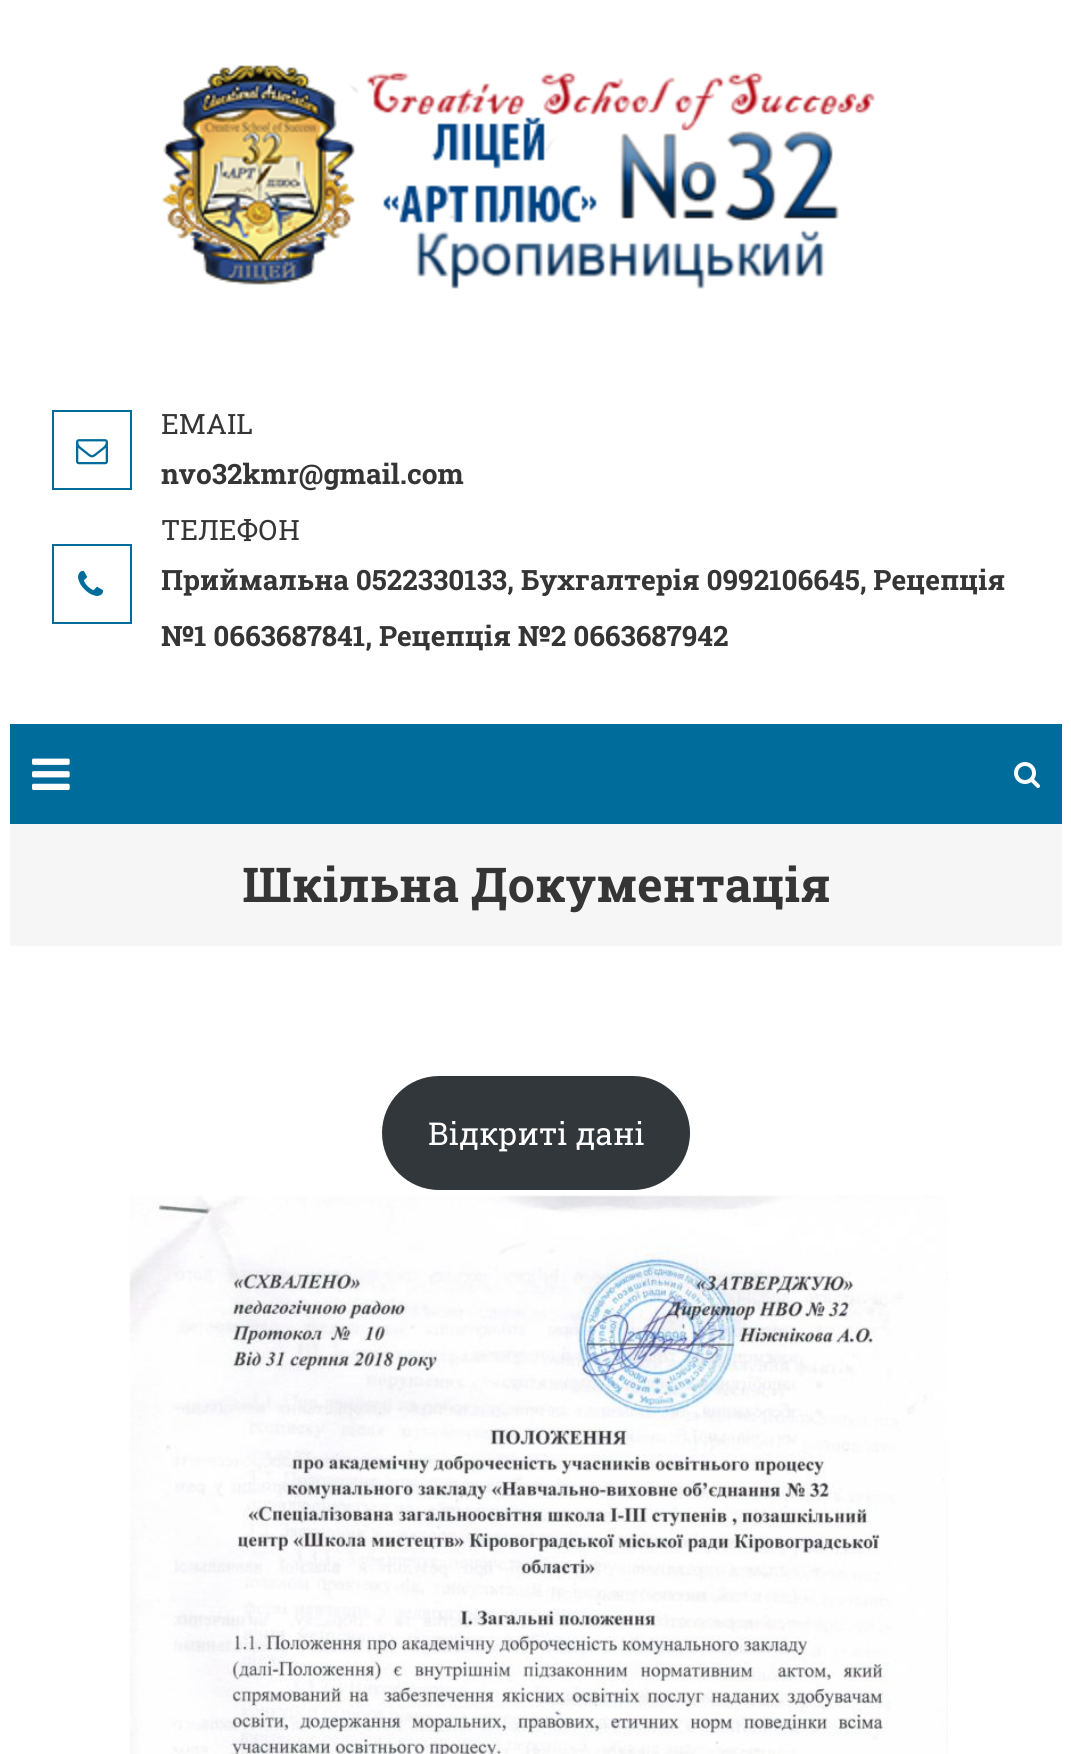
#include <cairo.h>
#include <math.h>
#include <stddef.h>


static void ink(cairo_t *ctx, unsigned color) {
    cairo_set_source_rgb(ctx, (color >> 16) / 255.0, (color >> 8 & 255) / 255.0, (color & 255) / 255.0);
}

static void round_path(cairo_t *ctx, double x, double y, double w, double h, double r) {
    cairo_new_sub_path(ctx);
    cairo_arc(ctx, x + w - r, y + h - r, r, 0, M_PI / 2);
    cairo_arc(ctx, x + r, y + h - r, r, M_PI / 2, M_PI);
    cairo_arc(ctx, x + r, y + r, r, M_PI, 1.5 * M_PI);
    cairo_arc(ctx, x + w - r, y + r, r, 1.5 * M_PI, 2 * M_PI);
    cairo_close_path(ctx);
}

static void paste(cairo_t *ctx, const char *path, double x, double y, double w, double h) {
    cairo_surface_t *image = cairo_image_surface_create_from_png(path);
    cairo_save(ctx);
    cairo_set_source_surface(ctx, image, x, y);
    cairo_rectangle(ctx, x, y, w, h);
    cairo_fill(ctx);
    cairo_restore(ctx);
    cairo_surface_destroy(image);
}

int main(void) {
    cairo_surface_t *surface = cairo_image_surface_create(CAIRO_FORMAT_RGB24, 1071, 1754);
    cairo_t *ctx = cairo_create(surface);
    cairo_font_options_t *options = cairo_font_options_create();
    cairo_font_options_set_hint_metrics(options, CAIRO_HINT_METRICS_OFF);
    cairo_font_options_set_hint_style(options, CAIRO_HINT_STYLE_NONE);
    cairo_set_font_options(ctx, options);
    cairo_set_miter_limit(ctx, 4);
    ink(ctx, 0xFFFFFF);
    cairo_paint(ctx);
    paste(ctx, "media/1.png", 161, 65, 714, 224);
    cairo_rectangle(ctx, 53, 411, 78, 78);
    ink(ctx, 0x006C9B);
    cairo_stroke(ctx);
    paste(ctx, "media/2.png", 76, 439, 32, 26);
    cairo_select_font_face(ctx, "Roboto Slab", CAIRO_FONT_SLANT_NORMAL, CAIRO_FONT_WEIGHT_NORMAL);
    cairo_set_font_size(ctx, 28);
    ink(ctx, 0x353535);
    cairo_move_to(ctx, 161, 434);
    cairo_show_text(ctx, "EMAIL");
    cairo_select_font_face(ctx, "Roboto Slab", CAIRO_FONT_SLANT_NORMAL, CAIRO_FONT_WEIGHT_BOLD);
    cairo_move_to(ctx, 161, 484);
    cairo_show_text(ctx, "nvo32kmr@gmail.com");
    cairo_select_font_face(ctx, "Roboto Slab", CAIRO_FONT_SLANT_NORMAL, CAIRO_FONT_WEIGHT_NORMAL);
    cairo_move_to(ctx, 161, 540);
    cairo_show_text(ctx, "ТЕЛЕФОН");
    cairo_rectangle(ctx, 53, 545, 78, 78);
    ink(ctx, 0x006C9B);
    cairo_stroke(ctx);
    paste(ctx, "media/3.png", 78, 570, 26, 26);
    cairo_select_font_face(ctx, "Roboto Slab", CAIRO_FONT_SLANT_NORMAL, CAIRO_FONT_WEIGHT_BOLD);
    ink(ctx, 0x353535);
    cairo_move_to(ctx, 161, 590);
    cairo_show_text(ctx, "Приймальна 0522330133, Бухгалтерія 0992106645, Рецепція");
    cairo_move_to(ctx, 161, 646);
    cairo_show_text(ctx, "№1 0663687841, Рецепція №2 0663687942");
    ink(ctx, 0x006C9B);
    cairo_rectangle(ctx, 10, 724, 1052, 100);
    cairo_fill(ctx);
    paste(ctx, "media/4.png", 32, 758, 38, 32);
    paste(ctx, "media/5.png", 1014, 762, 26, 26);
    ink(ctx, 0xF6F6F6);
    cairo_rectangle(ctx, 10, 824, 1052, 122);
    cairo_fill(ctx);
    cairo_set_font_size(ctx, 48);
    ink(ctx, 0x353535);
    cairo_move_to(ctx, 242, 902);
    cairo_show_text(ctx, "Шкільна Документація");
    ink(ctx, 0x32373C);
    round_path(ctx, 382, 1076, 308, 114, 57);
    cairo_fill(ctx);
    cairo_select_font_face(ctx, "Roboto Slab", CAIRO_FONT_SLANT_NORMAL, CAIRO_FONT_WEIGHT_NORMAL);
    cairo_set_font_size(ctx, 31.5);
    ink(ctx, 0xFFFFFF);
    cairo_move_to(ctx, 428, 1145);
    cairo_show_text(ctx, "Відкриті дані");
    paste(ctx, "media/6.png", 129, 1195, 819, 559);
    cairo_surface_write_to_png(surface, "image.png");
    cairo_font_options_destroy(options);
    cairo_destroy(ctx);
    cairo_surface_destroy(surface);
    return 0;
}
